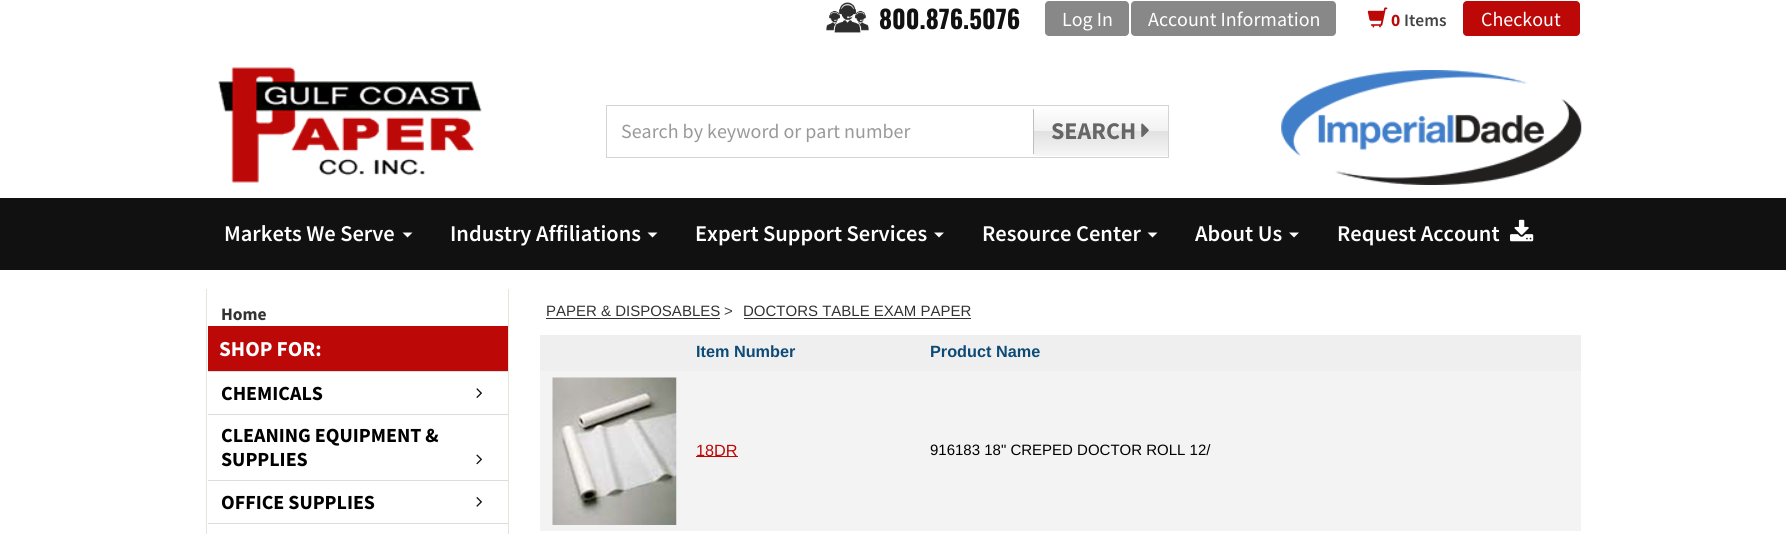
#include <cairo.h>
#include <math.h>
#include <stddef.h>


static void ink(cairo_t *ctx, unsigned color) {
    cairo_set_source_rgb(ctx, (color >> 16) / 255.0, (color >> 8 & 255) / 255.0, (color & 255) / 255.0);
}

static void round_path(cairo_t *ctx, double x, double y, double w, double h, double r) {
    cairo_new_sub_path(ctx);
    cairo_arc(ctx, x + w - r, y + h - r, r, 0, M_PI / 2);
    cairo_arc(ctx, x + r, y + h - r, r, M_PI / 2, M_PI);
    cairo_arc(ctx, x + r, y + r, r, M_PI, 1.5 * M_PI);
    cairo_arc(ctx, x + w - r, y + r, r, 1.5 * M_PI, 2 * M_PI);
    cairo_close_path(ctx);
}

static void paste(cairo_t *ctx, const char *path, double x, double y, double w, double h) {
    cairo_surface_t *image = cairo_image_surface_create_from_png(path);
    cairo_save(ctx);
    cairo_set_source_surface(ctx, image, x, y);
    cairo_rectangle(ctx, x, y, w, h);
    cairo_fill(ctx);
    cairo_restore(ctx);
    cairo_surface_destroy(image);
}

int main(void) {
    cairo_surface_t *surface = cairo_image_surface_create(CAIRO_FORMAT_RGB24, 1786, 534);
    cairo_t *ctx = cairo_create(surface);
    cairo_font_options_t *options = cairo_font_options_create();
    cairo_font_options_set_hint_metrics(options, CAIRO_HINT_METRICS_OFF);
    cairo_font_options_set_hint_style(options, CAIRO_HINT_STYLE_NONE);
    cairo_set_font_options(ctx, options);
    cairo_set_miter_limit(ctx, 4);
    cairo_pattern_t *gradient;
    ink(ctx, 0xFFFFFF);
    cairo_paint(ctx);
    paste(ctx, "media/1.png", 826, 2, 43, 31);
    cairo_select_font_face(ctx, "Oswald", CAIRO_FONT_SLANT_NORMAL, CAIRO_FONT_WEIGHT_BOLD);
    cairo_set_font_size(ctx, 25);
    ink(ctx, 0x111111);
    cairo_move_to(ctx, 879, 29);
    cairo_show_text(ctx, "800.876.5076");
    ink(ctx, 0x888888);
    round_path(ctx, 1045, 1, 84, 35, 4);
    cairo_fill(ctx);
    cairo_select_font_face(ctx, "Source Sans Pro", CAIRO_FONT_SLANT_NORMAL, CAIRO_FONT_WEIGHT_NORMAL);
    cairo_set_font_size(ctx, 20);
    ink(ctx, 0xFFFFFF);
    cairo_move_to(ctx, 1062, 26);
    cairo_show_text(ctx, "Log In");
    ink(ctx, 0x888888);
    round_path(ctx, 1131, 1, 205, 35, 4);
    cairo_fill(ctx);
    ink(ctx, 0xFFFFFF);
    cairo_move_to(ctx, 1148, 26);
    cairo_show_text(ctx, "Account Information");
    paste(ctx, "media/2.png", 1367, 7, 21, 21);
    cairo_select_font_face(ctx, "Source Sans Pro", CAIRO_FONT_SLANT_NORMAL, CAIRO_FONT_WEIGHT_BOLD);
    cairo_set_font_size(ctx, 17.5);
    ink(ctx, 0xBD0808);
    cairo_move_to(ctx, 1391, 26);
    cairo_show_text(ctx, "0");
    cairo_select_font_face(ctx, "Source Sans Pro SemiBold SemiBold", CAIRO_FONT_SLANT_NORMAL, CAIRO_FONT_WEIGHT_NORMAL);
    ink(ctx, 0x444444);
    cairo_move_to(ctx, 1404, 26);
    cairo_show_text(ctx, "Items");
    ink(ctx, 0xBD0808);
    round_path(ctx, 1463, 1, 117, 35, 4);
    cairo_fill(ctx);
    cairo_select_font_face(ctx, "Source Sans Pro", CAIRO_FONT_SLANT_NORMAL, CAIRO_FONT_WEIGHT_NORMAL);
    cairo_set_font_size(ctx, 20);
    ink(ctx, 0xFFFFFF);
    cairo_move_to(ctx, 1481, 26);
    cairo_show_text(ctx, "Checkout");
    paste(ctx, "media/3.png", 218, 67, 264, 116);
    cairo_rectangle(ctx, 606.5, 105.5, 562, 52);
    ink(ctx, 0xD4D4D4);
    cairo_set_line_width(ctx, 1);
    cairo_stroke(ctx);
    ink(ctx, 0x999999);
    cairo_move_to(ctx, 621, 138);
    cairo_show_text(ctx, "Search by keyword or part number");
    ink(ctx, 0xBFBFBF);
    cairo_rectangle(ctx, 1033, 109, 1, 45);
    cairo_fill(ctx);
    gradient = cairo_pattern_create_linear(1101, 106, 1101, 156);
    cairo_pattern_add_color_stop_rgba(gradient, 0, 1, 1, 1, 1);
    cairo_pattern_add_color_stop_rgba(gradient, 0.5, 0.945, 0.945, 0.945, 1);
    cairo_pattern_add_color_stop_rgba(gradient, 0.51, 0.882, 0.882, 0.882, 1);
    cairo_pattern_add_color_stop_rgba(gradient, 1, 0.965, 0.965, 0.965, 1);
    cairo_set_source(ctx, gradient);
    cairo_pattern_destroy(gradient);
    cairo_rectangle(ctx, 1034, 110, 134, 46);
    cairo_fill(ctx);
    cairo_select_font_face(ctx, "Source Sans Pro", CAIRO_FONT_SLANT_NORMAL, CAIRO_FONT_WEIGHT_BOLD);
    cairo_set_font_size(ctx, 24);
    ink(ctx, 0x666666);
    cairo_move_to(ctx, 1051, 139);
    cairo_show_text(ctx, "SEARCH");
    paste(ctx, "media/4.png", 1141, 123, 8, 14);
    paste(ctx, "media/5.png", 1281, 70, 301, 115);
    ink(ctx, 0x111111);
    cairo_rectangle(ctx, 0, 198, 1786, 72);
    cairo_fill(ctx);
    cairo_select_font_face(ctx, "Source Sans Pro SemiBold SemiBold", CAIRO_FONT_SLANT_NORMAL, CAIRO_FONT_WEIGHT_NORMAL);
    cairo_set_font_size(ctx, 22.5);
    ink(ctx, 0xFFFFFF);
    cairo_move_to(ctx, 224, 241);
    cairo_show_text(ctx, "Markets We Serve");
    ink(ctx, 0xFAFAF8);
    cairo_new_path(ctx);
    cairo_move_to(ctx, 402.5, 232.5);
    cairo_line_to(ctx, 412.5, 232.5);
    cairo_line_to(ctx, 407.5, 237.5);
    cairo_close_path(ctx);
    cairo_fill(ctx);
    ink(ctx, 0xFFFFFF);
    cairo_move_to(ctx, 450, 241);
    cairo_show_text(ctx, "Industry Affiliations");
    ink(ctx, 0xFAFAF8);
    cairo_new_path(ctx);
    cairo_move_to(ctx, 647.5, 232.5);
    cairo_line_to(ctx, 657.5, 232.5);
    cairo_line_to(ctx, 652.5, 237.5);
    cairo_close_path(ctx);
    cairo_fill(ctx);
    ink(ctx, 0xFFFFFF);
    cairo_move_to(ctx, 695, 241);
    cairo_show_text(ctx, "Expert Support Services");
    ink(ctx, 0xFAFAF8);
    cairo_new_path(ctx);
    cairo_move_to(ctx, 934, 232.5);
    cairo_line_to(ctx, 944, 232.5);
    cairo_line_to(ctx, 939, 237.5);
    cairo_close_path(ctx);
    cairo_fill(ctx);
    ink(ctx, 0xFFFFFF);
    cairo_move_to(ctx, 982, 241);
    cairo_show_text(ctx, "Resource Center");
    ink(ctx, 0xFAFAF8);
    cairo_new_path(ctx);
    cairo_move_to(ctx, 1147.5, 232.5);
    cairo_line_to(ctx, 1157.5, 232.5);
    cairo_line_to(ctx, 1152.5, 237.5);
    cairo_close_path(ctx);
    cairo_fill(ctx);
    ink(ctx, 0xFFFFFF);
    cairo_move_to(ctx, 1195, 241);
    cairo_show_text(ctx, "About Us");
    ink(ctx, 0xFAFAF8);
    cairo_new_path(ctx);
    cairo_move_to(ctx, 1289, 232.5);
    cairo_line_to(ctx, 1299, 232.5);
    cairo_line_to(ctx, 1294, 237.5);
    cairo_close_path(ctx);
    cairo_fill(ctx);
    ink(ctx, 0xFFFFFF);
    cairo_move_to(ctx, 1337, 241);
    cairo_show_text(ctx, "Request Account");
    paste(ctx, "media/6.png", 1510, 219, 24, 23);
    ink(ctx, 0xE5E5DB);
    cairo_rectangle(ctx, 508, 289, 1, 245);
    cairo_fill(ctx);
    cairo_rectangle(ctx, 206, 289, 1, 245);
    cairo_fill(ctx);
    cairo_select_font_face(ctx, "Source Sans Pro", CAIRO_FONT_SLANT_NORMAL, CAIRO_FONT_WEIGHT_BOLD);
    cairo_set_font_size(ctx, 17.5);
    ink(ctx, 0x333333);
    cairo_move_to(ctx, 221, 320);
    cairo_show_text(ctx, "Home");
    ink(ctx, 0xBD0808);
    cairo_rectangle(ctx, 208, 326, 300, 45);
    cairo_fill(ctx);
    cairo_set_font_size(ctx, 21.25);
    ink(ctx, 0xFFFFFF);
    cairo_move_to(ctx, 219, 356);
    cairo_show_text(ctx, "SHOP FOR:");
    ink(ctx, 0xDDDDDD);
    cairo_rectangle(ctx, 208, 371, 300, 1);
    cairo_fill(ctx);
    cairo_set_font_size(ctx, 20);
    ink(ctx, 0x000000);
    cairo_move_to(ctx, 221, 400);
    cairo_show_text(ctx, "CHEMICALS");
    paste(ctx, "media/7.png", 476, 388, 6, 10);
    ink(ctx, 0xDDDDDD);
    cairo_rectangle(ctx, 208, 414, 300, 1);
    cairo_fill(ctx);
    ink(ctx, 0x000000);
    cairo_move_to(ctx, 221, 442);
    cairo_show_text(ctx, "CLEANING EQUIPMENT &");
    cairo_move_to(ctx, 221, 466);
    cairo_show_text(ctx, "SUPPLIES");
    paste(ctx, "media/8.png", 476, 454, 6, 11);
    ink(ctx, 0xDDDDDD);
    cairo_rectangle(ctx, 208, 480, 300, 1);
    cairo_fill(ctx);
    ink(ctx, 0x000000);
    cairo_move_to(ctx, 221, 509);
    cairo_show_text(ctx, "OFFICE SUPPLIES");
    paste(ctx, "media/9.png", 476, 497, 6, 10);
    ink(ctx, 0xDDDDDD);
    cairo_rectangle(ctx, 208, 523, 300, 1);
    cairo_fill(ctx);
    cairo_select_font_face(ctx, "Liberation Sans", CAIRO_FONT_SLANT_NORMAL, CAIRO_FONT_WEIGHT_NORMAL);
    cairo_set_font_size(ctx, 15);
    ink(ctx, 0x333333);
    cairo_move_to(ctx, 546, 316);
    cairo_show_text(ctx, "PAPER & DISPOSABLES");
    cairo_rectangle(ctx, 546, 318, 174, 1);
    cairo_fill(ctx);
    ink(ctx, 0x444444);
    cairo_move_to(ctx, 724, 316);
    cairo_show_text(ctx, ">");
    ink(ctx, 0x333333);
    cairo_move_to(ctx, 743, 316);
    cairo_show_text(ctx, "DOCTORS TABLE EXAM PAPER");
    cairo_rectangle(ctx, 744, 318, 227, 1);
    cairo_fill(ctx);
    ink(ctx, 0xEFEFEF);
    cairo_rectangle(ctx, 540, 335, 1041, 36);
    cairo_fill(ctx);
    cairo_select_font_face(ctx, "Liberation Sans", CAIRO_FONT_SLANT_NORMAL, CAIRO_FONT_WEIGHT_BOLD);
    cairo_set_font_size(ctx, 16.25);
    ink(ctx, 0x0D4A77);
    cairo_move_to(ctx, 696, 357);
    cairo_show_text(ctx, "Item Number");
    cairo_move_to(ctx, 930, 357);
    cairo_show_text(ctx, "Product Name");
    ink(ctx, 0xF3F3F3);
    cairo_rectangle(ctx, 540, 371, 1041, 160);
    cairo_fill(ctx);
    paste(ctx, "media/10.png", 552, 377, 125, 148);
    ink(ctx, 0xBD0808);
    cairo_rectangle(ctx, 696, 456, 42, 1);
    cairo_fill(ctx);
    cairo_select_font_face(ctx, "Liberation Sans", CAIRO_FONT_SLANT_NORMAL, CAIRO_FONT_WEIGHT_NORMAL);
    cairo_move_to(ctx, 696, 456);
    cairo_show_text(ctx, "18DR");
    cairo_set_font_size(ctx, 15);
    ink(ctx, 0x000000);
    cairo_move_to(ctx, 930, 455);
    cairo_show_text(ctx, "916183 18\" CREPED DOCTOR ROLL 12/");
    cairo_surface_write_to_png(surface, "image.png");
    cairo_font_options_destroy(options);
    cairo_destroy(ctx);
    cairo_surface_destroy(surface);
    return 0;
}
